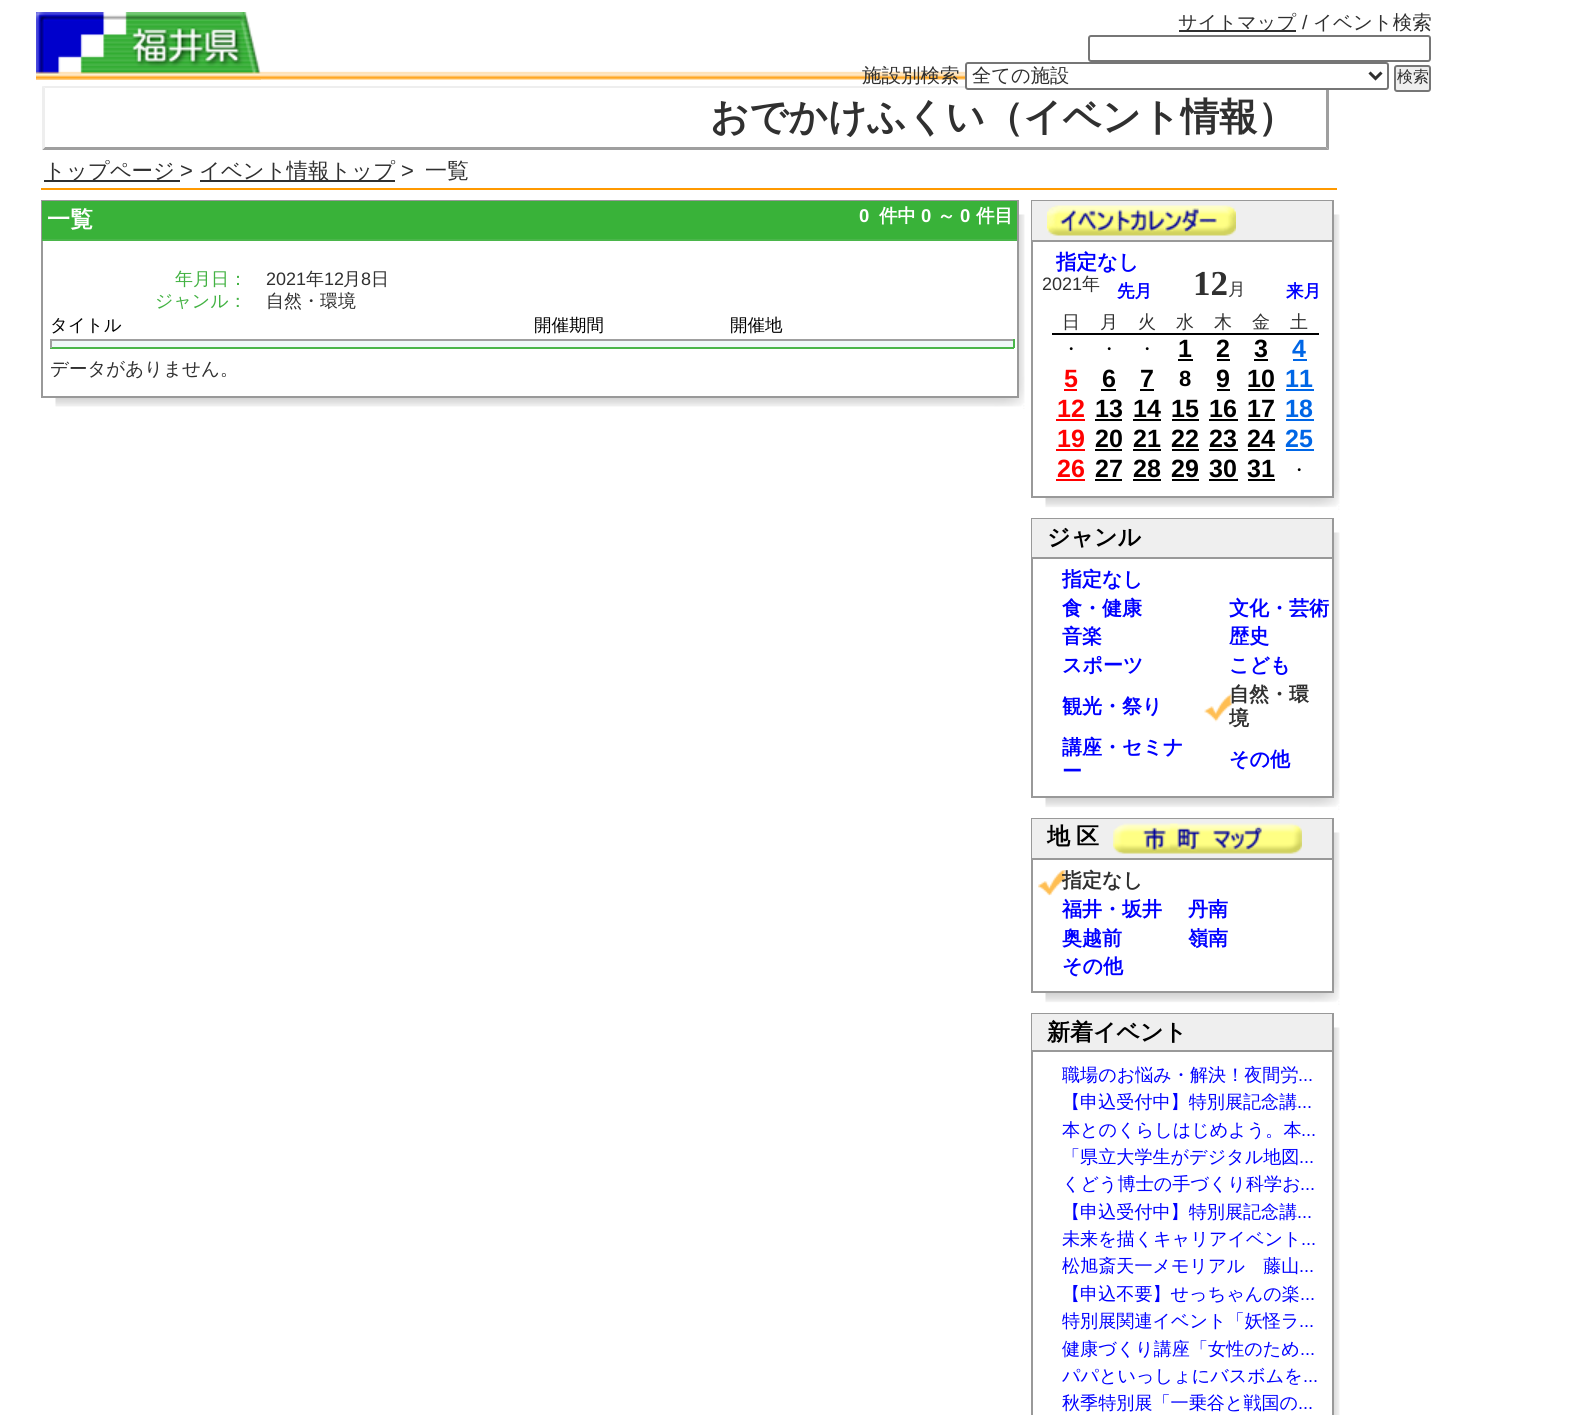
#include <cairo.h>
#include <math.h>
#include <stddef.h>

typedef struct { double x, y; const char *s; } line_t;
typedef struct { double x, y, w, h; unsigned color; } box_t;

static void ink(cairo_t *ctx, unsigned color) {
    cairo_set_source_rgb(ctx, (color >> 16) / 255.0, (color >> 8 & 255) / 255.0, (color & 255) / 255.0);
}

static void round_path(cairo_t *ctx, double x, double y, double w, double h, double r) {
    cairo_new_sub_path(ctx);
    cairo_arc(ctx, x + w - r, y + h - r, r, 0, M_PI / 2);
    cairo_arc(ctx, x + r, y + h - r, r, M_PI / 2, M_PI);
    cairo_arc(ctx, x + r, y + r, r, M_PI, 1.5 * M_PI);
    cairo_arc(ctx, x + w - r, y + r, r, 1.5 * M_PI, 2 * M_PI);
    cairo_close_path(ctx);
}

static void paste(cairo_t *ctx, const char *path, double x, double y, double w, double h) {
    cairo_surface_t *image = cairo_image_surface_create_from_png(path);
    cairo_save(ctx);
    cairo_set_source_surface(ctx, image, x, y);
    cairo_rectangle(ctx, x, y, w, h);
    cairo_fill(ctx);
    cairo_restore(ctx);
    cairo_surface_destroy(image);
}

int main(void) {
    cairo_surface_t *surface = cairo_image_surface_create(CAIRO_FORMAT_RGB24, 1571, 1415);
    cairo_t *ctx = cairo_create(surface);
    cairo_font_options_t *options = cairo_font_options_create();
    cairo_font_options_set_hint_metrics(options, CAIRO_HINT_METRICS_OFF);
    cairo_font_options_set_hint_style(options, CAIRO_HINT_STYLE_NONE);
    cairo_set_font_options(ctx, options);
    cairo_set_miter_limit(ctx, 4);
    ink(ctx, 0xFFFFFF);
    cairo_paint(ctx);
    paste(ctx, "media/1.png", 36, 71, 929, 9);
    paste(ctx, "media/2.png", 36, 12, 225, 68);
    ink(ctx, 0x303030);
    cairo_rectangle(ctx, 1179, 30, 117, 2);
    cairo_fill(ctx);
    cairo_select_font_face(ctx, "WenQuanYi Zen Hei Medium", CAIRO_FONT_SLANT_NORMAL, CAIRO_FONT_WEIGHT_NORMAL);
    cairo_set_font_size(ctx, 19.25);
    cairo_move_to(ctx, 1178, 29);
    cairo_show_text(ctx, "サイトマップ");
    cairo_select_font_face(ctx, "Liberation Sans", CAIRO_FONT_SLANT_NORMAL, CAIRO_FONT_WEIGHT_NORMAL);
    cairo_set_font_size(ctx, 19.5);
    cairo_move_to(ctx, 1302, 29);
    cairo_show_text(ctx, "/");
    cairo_select_font_face(ctx, "WenQuanYi Zen Hei Medium", CAIRO_FONT_SLANT_NORMAL, CAIRO_FONT_WEIGHT_NORMAL);
    cairo_move_to(ctx, 1313, 29);
    cairo_show_text(ctx, "イベント検索");
    round_path(ctx, 1089, 36, 341, 25, 2);
    ink(ctx, 0x767676);
    cairo_stroke(ctx);
    ink(ctx, 0x303030);
    cairo_move_to(ctx, 862, 82);
    cairo_show_text(ctx, "施設別検索");
    ink(ctx, 0xEEEEEE);
    cairo_new_path(ctx);
    cairo_move_to(ctx, 42, 86);
    cairo_line_to(ctx, 1329, 86);
    cairo_line_to(ctx, 1326, 88);
    cairo_line_to(ctx, 45, 88);
    cairo_close_path(ctx);
    cairo_fill(ctx);
    ink(ctx, 0x9F9F9F);
    cairo_new_path(ctx);
    cairo_move_to(ctx, 1329, 86);
    cairo_line_to(ctx, 1329, 150);
    cairo_line_to(ctx, 1326, 147);
    cairo_line_to(ctx, 1326, 88);
    cairo_close_path(ctx);
    cairo_fill(ctx);
    ink(ctx, 0xFFFFFF);
    round_path(ctx, 966, 63, 422, 26, 2);
    cairo_fill_preserve(ctx);
    ink(ctx, 0x767676);
    cairo_stroke(ctx);
    cairo_new_path(ctx);
    cairo_move_to(ctx, 1369.5, 72.5);
    cairo_line_to(ctx, 1375.5, 78.5);
    cairo_line_to(ctx, 1381.5, 72.5);
    ink(ctx, 0x303030);
    cairo_set_line_width(ctx, 3);
    cairo_stroke(ctx);
    cairo_set_font_size(ctx, 19.25);
    cairo_move_to(ctx, 972, 82);
    cairo_show_text(ctx, "全ての施設");
    ink(ctx, 0xEFEFEF);
    round_path(ctx, 1395, 66, 35, 25, 2);
    cairo_fill_preserve(ctx);
    ink(ctx, 0x767676);
    cairo_set_line_width(ctx, 2);
    cairo_stroke(ctx);
    cairo_set_font_size(ctx, 16);
    ink(ctx, 0x303030);
    cairo_move_to(ctx, 1397, 82);
    cairo_show_text(ctx, "検索");
    ink(ctx, 0x9F9F9F);
    cairo_new_path(ctx);
    cairo_move_to(ctx, 1329, 150);
    cairo_line_to(ctx, 42, 150);
    cairo_line_to(ctx, 45, 147);
    cairo_line_to(ctx, 1326, 147);
    cairo_close_path(ctx);
    cairo_fill(ctx);
    ink(ctx, 0xEEEEEE);
    cairo_new_path(ctx);
    cairo_move_to(ctx, 42, 150);
    cairo_line_to(ctx, 42, 86);
    cairo_line_to(ctx, 45, 88);
    cairo_line_to(ctx, 45, 147);
    cairo_close_path(ctx);
    cairo_fill(ctx);
    cairo_select_font_face(ctx, "WenQuanYi Zen Hei", CAIRO_FONT_SLANT_NORMAL, CAIRO_FONT_WEIGHT_BOLD);
    cairo_set_font_size(ctx, 38.4);
    ink(ctx, 0x303030);
    cairo_move_to(ctx, 710, 130);
    cairo_show_text(ctx, "おでかけふくい（イベント情報）");
    ink(ctx, 0xFF9900);
    cairo_rectangle(ctx, 41, 188, 1296, 2);
    cairo_fill(ctx);
    ink(ctx, 0x303030);
    cairo_rectangle(ctx, 44, 180, 136, 2);
    cairo_fill(ctx);
    cairo_select_font_face(ctx, "WenQuanYi Zen Hei Medium", CAIRO_FONT_SLANT_NORMAL, CAIRO_FONT_WEIGHT_NORMAL);
    cairo_set_font_size(ctx, 21.4);
    cairo_move_to(ctx, 44, 178);
    cairo_show_text(ctx, "トップページ");
    cairo_select_font_face(ctx, "Liberation Sans", CAIRO_FONT_SLANT_NORMAL, CAIRO_FONT_WEIGHT_NORMAL);
    cairo_set_font_size(ctx, 22);
    cairo_move_to(ctx, 180, 178);
    cairo_show_text(ctx, ">");
    cairo_rectangle(ctx, 200, 180, 195, 2);
    cairo_fill(ctx);
    cairo_select_font_face(ctx, "WenQuanYi Zen Hei Medium", CAIRO_FONT_SLANT_NORMAL, CAIRO_FONT_WEIGHT_NORMAL);
    cairo_set_font_size(ctx, 21.4);
    cairo_move_to(ctx, 199, 178);
    cairo_show_text(ctx, "イベント情報トップ");
    cairo_select_font_face(ctx, "Liberation Sans", CAIRO_FONT_SLANT_NORMAL, CAIRO_FONT_WEIGHT_NORMAL);
    cairo_set_font_size(ctx, 22);
    cairo_move_to(ctx, 401, 178);
    cairo_show_text(ctx, ">");
    cairo_select_font_face(ctx, "WenQuanYi Zen Hei Medium", CAIRO_FONT_SLANT_NORMAL, CAIRO_FONT_WEIGHT_NORMAL);
    cairo_move_to(ctx, 425, 178);
    cairo_show_text(ctx, "一覧");
    paste(ctx, "media/3.png", 55, 214, 970, 195);
    ink(ctx, 0xFFFFFF);
    cairo_rectangle(ctx, 55, 241, 962, 155);
    cairo_fill(ctx);
    cairo_rectangle(ctx, 42, 201, 976, 196);
    ink(ctx, 0x999999);
    cairo_stroke(ctx);
    ink(ctx, 0x39B239);
    cairo_rectangle(ctx, 42, 201, 975, 38);
    cairo_fill(ctx);
    ink(ctx, 0x4AB64A);
    cairo_rectangle(ctx, 42, 239, 975, 2);
    cairo_fill(ctx);
    cairo_select_font_face(ctx, "WenQuanYi Zen Hei", CAIRO_FONT_SLANT_NORMAL, CAIRO_FONT_WEIGHT_BOLD);
    cairo_set_font_size(ctx, 23);
    ink(ctx, 0xFFFFFF);
    cairo_move_to(ctx, 47, 227);
    cairo_show_text(ctx, "一覧");
    cairo_select_font_face(ctx, "Liberation Sans", CAIRO_FONT_SLANT_NORMAL, CAIRO_FONT_WEIGHT_BOLD);
    cairo_set_font_size(ctx, 18.5);
    cairo_move_to(ctx, 859, 222);
    cairo_show_text(ctx, "0");
    cairo_select_font_face(ctx, "WenQuanYi Zen Hei", CAIRO_FONT_SLANT_NORMAL, CAIRO_FONT_WEIGHT_BOLD);
    cairo_move_to(ctx, 879, 222);
    cairo_show_text(ctx, "件中");
    cairo_select_font_face(ctx, "Liberation Sans", CAIRO_FONT_SLANT_NORMAL, CAIRO_FONT_WEIGHT_BOLD);
    cairo_move_to(ctx, 921, 222);
    cairo_show_text(ctx, "0");
    cairo_select_font_face(ctx, "WenQuanYi Zen Hei", CAIRO_FONT_SLANT_NORMAL, CAIRO_FONT_WEIGHT_BOLD);
    cairo_move_to(ctx, 937, 222);
    cairo_show_text(ctx, "～");
    cairo_select_font_face(ctx, "Liberation Sans", CAIRO_FONT_SLANT_NORMAL, CAIRO_FONT_WEIGHT_BOLD);
    cairo_move_to(ctx, 960, 222);
    cairo_show_text(ctx, "0");
    cairo_select_font_face(ctx, "WenQuanYi Zen Hei", CAIRO_FONT_SLANT_NORMAL, CAIRO_FONT_WEIGHT_BOLD);
    cairo_move_to(ctx, 976, 222);
    cairo_show_text(ctx, "件目");
    cairo_select_font_face(ctx, "WenQuanYi Zen Hei Medium", CAIRO_FONT_SLANT_NORMAL, CAIRO_FONT_WEIGHT_NORMAL);
    cairo_set_font_size(ctx, 18);
    ink(ctx, 0x42B242);
    cairo_move_to(ctx, 175, 285);
    cairo_show_text(ctx, "年月日：");
    cairo_select_font_face(ctx, "Liberation Sans", CAIRO_FONT_SLANT_NORMAL, CAIRO_FONT_WEIGHT_NORMAL);
    ink(ctx, 0x303030);
    cairo_move_to(ctx, 266, 285);
    cairo_show_text(ctx, "2021");
    cairo_select_font_face(ctx, "WenQuanYi Zen Hei Medium", CAIRO_FONT_SLANT_NORMAL, CAIRO_FONT_WEIGHT_NORMAL);
    cairo_move_to(ctx, 306, 285);
    cairo_show_text(ctx, "年");
    cairo_select_font_face(ctx, "Liberation Sans", CAIRO_FONT_SLANT_NORMAL, CAIRO_FONT_WEIGHT_NORMAL);
    cairo_move_to(ctx, 324, 285);
    cairo_show_text(ctx, "12");
    cairo_select_font_face(ctx, "WenQuanYi Zen Hei Medium", CAIRO_FONT_SLANT_NORMAL, CAIRO_FONT_WEIGHT_NORMAL);
    cairo_move_to(ctx, 343, 285);
    cairo_show_text(ctx, "月");
    cairo_select_font_face(ctx, "Liberation Sans", CAIRO_FONT_SLANT_NORMAL, CAIRO_FONT_WEIGHT_NORMAL);
    cairo_move_to(ctx, 361, 285);
    cairo_show_text(ctx, "8");
    cairo_select_font_face(ctx, "WenQuanYi Zen Hei Medium", CAIRO_FONT_SLANT_NORMAL, CAIRO_FONT_WEIGHT_NORMAL);
    cairo_move_to(ctx, 371, 285);
    cairo_show_text(ctx, "日");
    ink(ctx, 0x42B242);
    cairo_move_to(ctx, 155, 307);
    cairo_show_text(ctx, "ジャンル：");
    ink(ctx, 0x303030);
    cairo_move_to(ctx, 266, 307);
    cairo_show_text(ctx, "自然・環境");
    cairo_set_font_size(ctx, 17.5);
    ink(ctx, 0x000000);
    {
        static const line_t items[] = {
            {50, 331, "タイトル"},
            {534, 331, "開催期間"},
            {730, 331, "開催地"},
        };
        for (size_t i = 0; i < sizeof items / sizeof *items; i++) {
            cairo_move_to(ctx, items[i].x, items[i].y);
            cairo_show_text(ctx, items[i].s);
        }
    }
    {
        static const box_t items[] = {
            {52, 341, 961, 6, 0xEFF8F8},
            {50, 339, 964, 2, 0x9F9F9F},
            {1013, 339, 2, 9, 0x4AB64A},
            {50, 347, 964, 2, 0x4AB64A},
            {50, 339, 2, 9, 0x9F9F9F},
        };
        for (size_t i = 0; i < sizeof items / sizeof *items; i++) {
            ink(ctx, items[i].color);
            cairo_rectangle(ctx, items[i].x, items[i].y, items[i].w, items[i].h);
            cairo_fill(ctx);
        }
    }
    cairo_set_font_size(ctx, 18.5);
    ink(ctx, 0x303030);
    cairo_move_to(ctx, 50, 375);
    cairo_show_text(ctx, "データがありません。");
    paste(ctx, "media/4.png", 1045, 214, 295, 296);
    ink(ctx, 0xFFFFFF);
    cairo_rectangle(ctx, 1045, 242, 287, 254);
    cairo_fill(ctx);
    cairo_rectangle(ctx, 1032, 201, 301, 296);
    ink(ctx, 0x999999);
    cairo_stroke(ctx);
    ink(ctx, 0xEFEFEF);
    cairo_rectangle(ctx, 1032, 201, 300, 39);
    cairo_fill(ctx);
    ink(ctx, 0x999999);
    cairo_rectangle(ctx, 1032, 240, 300, 2);
    cairo_fill(ctx);
    paste(ctx, "media/5.png", 1047, 205, 189, 31);
    cairo_select_font_face(ctx, "WenQuanYi Zen Hei", CAIRO_FONT_SLANT_NORMAL, CAIRO_FONT_WEIGHT_BOLD);
    cairo_set_font_size(ctx, 20.5);
    ink(ctx, 0x0000FF);
    cairo_move_to(ctx, 1056, 269);
    cairo_show_text(ctx, "指定なし");
    cairo_select_font_face(ctx, "Liberation Sans", CAIRO_FONT_SLANT_NORMAL, CAIRO_FONT_WEIGHT_NORMAL);
    cairo_set_font_size(ctx, 18);
    ink(ctx, 0x303030);
    cairo_move_to(ctx, 1042, 290);
    cairo_show_text(ctx, "2021");
    cairo_select_font_face(ctx, "WenQuanYi Zen Hei Medium", CAIRO_FONT_SLANT_NORMAL, CAIRO_FONT_WEIGHT_NORMAL);
    cairo_move_to(ctx, 1082, 290);
    cairo_show_text(ctx, "年");
    cairo_select_font_face(ctx, "WenQuanYi Zen Hei", CAIRO_FONT_SLANT_NORMAL, CAIRO_FONT_WEIGHT_BOLD);
    cairo_set_font_size(ctx, 17.5);
    ink(ctx, 0x0000FF);
    cairo_move_to(ctx, 1117, 297);
    cairo_show_text(ctx, "先月");
    cairo_select_font_face(ctx, "Liberation Serif", CAIRO_FONT_SLANT_NORMAL, CAIRO_FONT_WEIGHT_BOLD);
    cairo_set_font_size(ctx, 35);
    ink(ctx, 0x303030);
    cairo_move_to(ctx, 1193, 295);
    cairo_show_text(ctx, "12");
    cairo_select_font_face(ctx, "WenQuanYi Zen Hei Medium", CAIRO_FONT_SLANT_NORMAL, CAIRO_FONT_WEIGHT_NORMAL);
    cairo_set_font_size(ctx, 17.5);
    cairo_move_to(ctx, 1228, 295);
    cairo_show_text(ctx, "月");
    cairo_select_font_face(ctx, "WenQuanYi Zen Hei", CAIRO_FONT_SLANT_NORMAL, CAIRO_FONT_WEIGHT_BOLD);
    ink(ctx, 0x0000FF);
    cairo_move_to(ctx, 1286, 297);
    cairo_show_text(ctx, "来月");
    ink(ctx, 0x000000);
    cairo_rectangle(ctx, 1052, 333, 267, 2);
    cairo_fill(ctx);
    cairo_select_font_face(ctx, "WenQuanYi Zen Hei Medium", CAIRO_FONT_SLANT_NORMAL, CAIRO_FONT_WEIGHT_NORMAL);
    cairo_set_font_size(ctx, 18);
    ink(ctx, 0x303030);
    {
        static const line_t items[] = {
            {1062, 328, "日"},
            {1100, 328, "月"},
            {1138, 328, "火"},
            {1176, 328, "水"},
            {1214, 328, "木"},
            {1252, 328, "金"},
            {1290, 328, "土"},
        };
        for (size_t i = 0; i < sizeof items / sizeof *items; i++) {
            cairo_move_to(ctx, items[i].x, items[i].y);
            cairo_show_text(ctx, items[i].s);
        }
    }
    ink(ctx, 0x000000);
    {
        static const line_t items[] = {
            {1062, 355, "・"},
            {1100, 355, "・"},
            {1138, 355, "・"},
        };
        for (size_t i = 0; i < sizeof items / sizeof *items; i++) {
            cairo_move_to(ctx, items[i].x, items[i].y);
            cairo_show_text(ctx, items[i].s);
        }
    }
    cairo_select_font_face(ctx, "Liberation Sans", CAIRO_FONT_SLANT_NORMAL, CAIRO_FONT_WEIGHT_BOLD);
    cairo_set_font_size(ctx, 25);
    cairo_move_to(ctx, 1178, 357);
    cairo_show_text(ctx, "1");
    cairo_rectangle(ctx, 1178, 359, 15, 2);
    cairo_fill(ctx);
    cairo_move_to(ctx, 1216, 357);
    cairo_show_text(ctx, "2");
    cairo_rectangle(ctx, 1217, 359, 13, 2);
    cairo_fill(ctx);
    cairo_move_to(ctx, 1254, 357);
    cairo_show_text(ctx, "3");
    cairo_rectangle(ctx, 1254, 359, 14, 2);
    cairo_fill(ctx);
    ink(ctx, 0x0066E6);
    cairo_move_to(ctx, 1292, 357);
    cairo_show_text(ctx, "4");
    cairo_rectangle(ctx, 1293, 359, 14, 2);
    cairo_fill(ctx);
    ink(ctx, 0xFF0000);
    cairo_move_to(ctx, 1064, 387);
    cairo_show_text(ctx, "5");
    cairo_rectangle(ctx, 1064, 389, 13, 2);
    cairo_fill(ctx);
    ink(ctx, 0x000000);
    cairo_move_to(ctx, 1102, 387);
    cairo_show_text(ctx, "6");
    cairo_rectangle(ctx, 1101, 389, 15, 2);
    cairo_fill(ctx);
    cairo_move_to(ctx, 1140, 387);
    cairo_show_text(ctx, "7");
    cairo_rectangle(ctx, 1140, 389, 14, 2);
    cairo_fill(ctx);
    cairo_set_font_size(ctx, 22);
    cairo_move_to(ctx, 1179, 386);
    cairo_show_text(ctx, "8");
    cairo_set_font_size(ctx, 25);
    cairo_move_to(ctx, 1216, 387);
    cairo_show_text(ctx, "9");
    cairo_rectangle(ctx, 1217, 389, 13, 2);
    cairo_fill(ctx);
    cairo_move_to(ctx, 1247, 387);
    cairo_show_text(ctx, "10");
    cairo_rectangle(ctx, 1248, 389, 27, 2);
    cairo_fill(ctx);
    ink(ctx, 0x0066E6);
    cairo_move_to(ctx, 1285, 387);
    cairo_show_text(ctx, "11");
    cairo_rectangle(ctx, 1286, 389, 28, 2);
    cairo_fill(ctx);
    ink(ctx, 0xFF0000);
    cairo_move_to(ctx, 1057, 417);
    cairo_show_text(ctx, "12");
    cairo_rectangle(ctx, 1056, 419, 29, 2);
    cairo_fill(ctx);
    ink(ctx, 0x000000);
    cairo_move_to(ctx, 1095, 417);
    cairo_show_text(ctx, "13");
    cairo_rectangle(ctx, 1095, 419, 27, 2);
    cairo_fill(ctx);
    cairo_move_to(ctx, 1133, 417);
    cairo_show_text(ctx, "14");
    cairo_rectangle(ctx, 1133, 419, 28, 2);
    cairo_fill(ctx);
    cairo_move_to(ctx, 1171, 417);
    cairo_show_text(ctx, "15");
    cairo_rectangle(ctx, 1172, 419, 27, 2);
    cairo_fill(ctx);
    cairo_move_to(ctx, 1209, 417);
    cairo_show_text(ctx, "16");
    cairo_rectangle(ctx, 1209, 419, 29, 2);
    cairo_fill(ctx);
    cairo_move_to(ctx, 1247, 417);
    cairo_show_text(ctx, "17");
    cairo_rectangle(ctx, 1248, 419, 27, 2);
    cairo_fill(ctx);
    ink(ctx, 0x0066E6);
    cairo_move_to(ctx, 1285, 417);
    cairo_show_text(ctx, "18");
    cairo_rectangle(ctx, 1286, 419, 28, 2);
    cairo_fill(ctx);
    ink(ctx, 0xFF0000);
    cairo_move_to(ctx, 1057, 447);
    cairo_show_text(ctx, "19");
    cairo_rectangle(ctx, 1056, 449, 29, 2);
    cairo_fill(ctx);
    ink(ctx, 0x000000);
    cairo_move_to(ctx, 1095, 447);
    cairo_show_text(ctx, "20");
    cairo_rectangle(ctx, 1095, 449, 27, 2);
    cairo_fill(ctx);
    cairo_move_to(ctx, 1133, 447);
    cairo_show_text(ctx, "21");
    cairo_rectangle(ctx, 1133, 449, 28, 2);
    cairo_fill(ctx);
    cairo_move_to(ctx, 1171, 447);
    cairo_show_text(ctx, "22");
    cairo_rectangle(ctx, 1172, 449, 27, 2);
    cairo_fill(ctx);
    cairo_move_to(ctx, 1209, 447);
    cairo_show_text(ctx, "23");
    cairo_rectangle(ctx, 1209, 449, 29, 2);
    cairo_fill(ctx);
    cairo_move_to(ctx, 1247, 447);
    cairo_show_text(ctx, "24");
    cairo_rectangle(ctx, 1248, 449, 27, 2);
    cairo_fill(ctx);
    ink(ctx, 0x0066E6);
    cairo_move_to(ctx, 1285, 447);
    cairo_show_text(ctx, "25");
    cairo_rectangle(ctx, 1286, 449, 28, 2);
    cairo_fill(ctx);
    ink(ctx, 0xFF0000);
    cairo_move_to(ctx, 1057, 477);
    cairo_show_text(ctx, "26");
    cairo_rectangle(ctx, 1056, 479, 29, 2);
    cairo_fill(ctx);
    ink(ctx, 0x000000);
    cairo_move_to(ctx, 1095, 477);
    cairo_show_text(ctx, "27");
    cairo_rectangle(ctx, 1095, 479, 27, 2);
    cairo_fill(ctx);
    cairo_move_to(ctx, 1133, 477);
    cairo_show_text(ctx, "28");
    cairo_rectangle(ctx, 1133, 479, 28, 2);
    cairo_fill(ctx);
    cairo_move_to(ctx, 1171, 477);
    cairo_show_text(ctx, "29");
    cairo_rectangle(ctx, 1172, 479, 27, 2);
    cairo_fill(ctx);
    cairo_move_to(ctx, 1209, 477);
    cairo_show_text(ctx, "30");
    cairo_rectangle(ctx, 1209, 479, 29, 2);
    cairo_fill(ctx);
    cairo_move_to(ctx, 1247, 477);
    cairo_show_text(ctx, "31");
    cairo_rectangle(ctx, 1248, 479, 27, 2);
    cairo_fill(ctx);
    cairo_select_font_face(ctx, "WenQuanYi Zen Hei Medium", CAIRO_FONT_SLANT_NORMAL, CAIRO_FONT_WEIGHT_NORMAL);
    cairo_set_font_size(ctx, 18);
    cairo_move_to(ctx, 1290, 476);
    cairo_show_text(ctx, "・");
    paste(ctx, "media/6.png", 1045, 532, 295, 278);
    ink(ctx, 0xFFFFFF);
    cairo_rectangle(ctx, 1045, 559, 287, 237);
    cairo_fill(ctx);
    cairo_rectangle(ctx, 1032, 519, 301, 278);
    ink(ctx, 0x999999);
    cairo_stroke(ctx);
    ink(ctx, 0xEFEFEF);
    cairo_rectangle(ctx, 1032, 519, 300, 38);
    cairo_fill(ctx);
    ink(ctx, 0x999999);
    cairo_rectangle(ctx, 1032, 557, 300, 2);
    cairo_fill(ctx);
    cairo_select_font_face(ctx, "WenQuanYi Zen Hei", CAIRO_FONT_SLANT_NORMAL, CAIRO_FONT_WEIGHT_BOLD);
    cairo_set_font_size(ctx, 23);
    ink(ctx, 0x000000);
    cairo_move_to(ctx, 1047, 545);
    cairo_show_text(ctx, "ジャンル");
    cairo_set_font_size(ctx, 20);
    ink(ctx, 0x0000FF);
    {
        static const line_t items[] = {
            {1062, 586, "指定なし"},
            {1062, 615, "食・健康"},
            {1229, 615, "文化・芸術"},
            {1062, 643, "音楽"},
            {1229, 643, "歴史"},
            {1062, 672, "スポーツ"},
            {1229, 672, "こども"},
            {1062, 713, "観光・祭り"},
        };
        for (size_t i = 0; i < sizeof items / sizeof *items; i++) {
            cairo_move_to(ctx, items[i].x, items[i].y);
            cairo_show_text(ctx, items[i].s);
        }
    }
    paste(ctx, "media/7.png", 1204, 694, 28, 28);
    ink(ctx, 0x303030);
    cairo_move_to(ctx, 1229, 701);
    cairo_show_text(ctx, "自然・環");
    cairo_move_to(ctx, 1229, 725);
    cairo_show_text(ctx, "境");
    ink(ctx, 0x0000FF);
    {
        static const line_t items[] = {
            {1062, 754, "講座・セミナ"},
            {1062, 778, "ー"},
            {1229, 766, "その他"},
        };
        for (size_t i = 0; i < sizeof items / sizeof *items; i++) {
            cairo_move_to(ctx, items[i].x, items[i].y);
            cairo_show_text(ctx, items[i].s);
        }
    }
    paste(ctx, "media/8.png", 1045, 832, 295, 173);
    ink(ctx, 0xFFFFFF);
    cairo_rectangle(ctx, 1045, 860, 287, 131);
    cairo_fill(ctx);
    cairo_rectangle(ctx, 1032, 819, 301, 173);
    ink(ctx, 0x999999);
    cairo_stroke(ctx);
    ink(ctx, 0xEFEFEF);
    cairo_rectangle(ctx, 1032, 819, 300, 39);
    cairo_fill(ctx);
    ink(ctx, 0x999999);
    cairo_rectangle(ctx, 1032, 858, 300, 2);
    cairo_fill(ctx);
    cairo_set_font_size(ctx, 23);
    ink(ctx, 0x000000);
    cairo_move_to(ctx, 1047, 844);
    cairo_show_text(ctx, "地");
    cairo_move_to(ctx, 1076, 844);
    cairo_show_text(ctx, "区");
    paste(ctx, "media/9.png", 1113, 823, 189, 31);
    paste(ctx, "media/10.png", 1038, 870, 27, 26);
    cairo_set_font_size(ctx, 20);
    ink(ctx, 0x303030);
    cairo_move_to(ctx, 1062, 887);
    cairo_show_text(ctx, "指定なし");
    ink(ctx, 0x0000FF);
    {
        static const line_t items[] = {
            {1062, 916, "福井・坂井"},
            {1188, 916, "丹南"},
            {1062, 945, "奥越前"},
            {1188, 945, "嶺南"},
            {1062, 973, "その他"},
        };
        for (size_t i = 0; i < sizeof items / sizeof *items; i++) {
            cairo_move_to(ctx, items[i].x, items[i].y);
            cairo_show_text(ctx, items[i].s);
        }
    }
    paste(ctx, "media/11.png", 1334, 1027, 6, 388);
    cairo_rectangle(ctx, 1032, 1014, 301, 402);
    ink(ctx, 0x999999);
    cairo_stroke(ctx);
    ink(ctx, 0xEFEFEF);
    cairo_rectangle(ctx, 1032, 1014, 300, 36);
    cairo_fill(ctx);
    ink(ctx, 0x999999);
    cairo_rectangle(ctx, 1032, 1050, 300, 2);
    cairo_fill(ctx);
    cairo_set_font_size(ctx, 23);
    ink(ctx, 0x000000);
    cairo_move_to(ctx, 1047, 1040);
    cairo_show_text(ctx, "新着イベント");
    cairo_select_font_face(ctx, "WenQuanYi Zen Hei Medium", CAIRO_FONT_SLANT_NORMAL, CAIRO_FONT_WEIGHT_NORMAL);
    cairo_set_font_size(ctx, 18.1);
    ink(ctx, 0x0000FF);
    cairo_move_to(ctx, 1062, 1081);
    cairo_show_text(ctx, "職場のお悩み・解決！夜間労");
    cairo_select_font_face(ctx, "Liberation Sans", CAIRO_FONT_SLANT_NORMAL, CAIRO_FONT_WEIGHT_NORMAL);
    cairo_move_to(ctx, 1298, 1081);
    cairo_show_text(ctx, "...");
    cairo_select_font_face(ctx, "WenQuanYi Zen Hei Medium", CAIRO_FONT_SLANT_NORMAL, CAIRO_FONT_WEIGHT_NORMAL);
    cairo_move_to(ctx, 1062, 1108);
    cairo_show_text(ctx, "【申込受付中】特別展記念講");
    cairo_select_font_face(ctx, "Liberation Sans", CAIRO_FONT_SLANT_NORMAL, CAIRO_FONT_WEIGHT_NORMAL);
    cairo_move_to(ctx, 1297, 1108);
    cairo_show_text(ctx, "...");
    cairo_select_font_face(ctx, "WenQuanYi Zen Hei Medium", CAIRO_FONT_SLANT_NORMAL, CAIRO_FONT_WEIGHT_NORMAL);
    cairo_move_to(ctx, 1062, 1136);
    cairo_show_text(ctx, "本とのくらしはじめよう。本");
    cairo_select_font_face(ctx, "Liberation Sans", CAIRO_FONT_SLANT_NORMAL, CAIRO_FONT_WEIGHT_NORMAL);
    cairo_move_to(ctx, 1301, 1136);
    cairo_show_text(ctx, "...");
    cairo_select_font_face(ctx, "WenQuanYi Zen Hei Medium", CAIRO_FONT_SLANT_NORMAL, CAIRO_FONT_WEIGHT_NORMAL);
    cairo_move_to(ctx, 1062, 1163);
    cairo_show_text(ctx, "「県立大学生がデジタル地図");
    cairo_select_font_face(ctx, "Liberation Sans", CAIRO_FONT_SLANT_NORMAL, CAIRO_FONT_WEIGHT_NORMAL);
    cairo_move_to(ctx, 1299, 1163);
    cairo_show_text(ctx, "...");
    cairo_select_font_face(ctx, "WenQuanYi Zen Hei Medium", CAIRO_FONT_SLANT_NORMAL, CAIRO_FONT_WEIGHT_NORMAL);
    cairo_move_to(ctx, 1062, 1190);
    cairo_show_text(ctx, "くどう博士の手づくり科学お");
    cairo_select_font_face(ctx, "Liberation Sans", CAIRO_FONT_SLANT_NORMAL, CAIRO_FONT_WEIGHT_NORMAL);
    cairo_move_to(ctx, 1300, 1190);
    cairo_show_text(ctx, "...");
    cairo_select_font_face(ctx, "WenQuanYi Zen Hei Medium", CAIRO_FONT_SLANT_NORMAL, CAIRO_FONT_WEIGHT_NORMAL);
    cairo_move_to(ctx, 1062, 1218);
    cairo_show_text(ctx, "【申込受付中】特別展記念講");
    cairo_select_font_face(ctx, "Liberation Sans", CAIRO_FONT_SLANT_NORMAL, CAIRO_FONT_WEIGHT_NORMAL);
    cairo_move_to(ctx, 1297, 1218);
    cairo_show_text(ctx, "...");
    cairo_select_font_face(ctx, "WenQuanYi Zen Hei Medium", CAIRO_FONT_SLANT_NORMAL, CAIRO_FONT_WEIGHT_NORMAL);
    cairo_move_to(ctx, 1062, 1245);
    cairo_show_text(ctx, "未来を描くキャリアイベント");
    cairo_select_font_face(ctx, "Liberation Sans", CAIRO_FONT_SLANT_NORMAL, CAIRO_FONT_WEIGHT_NORMAL);
    cairo_move_to(ctx, 1301, 1245);
    cairo_show_text(ctx, "...");
    cairo_select_font_face(ctx, "WenQuanYi Zen Hei Medium", CAIRO_FONT_SLANT_NORMAL, CAIRO_FONT_WEIGHT_NORMAL);
    cairo_move_to(ctx, 1062, 1272);
    cairo_show_text(ctx, "松旭斎天一メモリアル　藤山");
    cairo_select_font_face(ctx, "Liberation Sans", CAIRO_FONT_SLANT_NORMAL, CAIRO_FONT_WEIGHT_NORMAL);
    cairo_move_to(ctx, 1299, 1272);
    cairo_show_text(ctx, "...");
    cairo_select_font_face(ctx, "WenQuanYi Zen Hei Medium", CAIRO_FONT_SLANT_NORMAL, CAIRO_FONT_WEIGHT_NORMAL);
    cairo_move_to(ctx, 1062, 1300);
    cairo_show_text(ctx, "【申込不要】せっちゃんの楽");
    cairo_select_font_face(ctx, "Liberation Sans", CAIRO_FONT_SLANT_NORMAL, CAIRO_FONT_WEIGHT_NORMAL);
    cairo_move_to(ctx, 1300, 1300);
    cairo_show_text(ctx, "...");
    cairo_select_font_face(ctx, "WenQuanYi Zen Hei Medium", CAIRO_FONT_SLANT_NORMAL, CAIRO_FONT_WEIGHT_NORMAL);
    cairo_move_to(ctx, 1062, 1327);
    cairo_show_text(ctx, "特別展関連イベント「妖怪ラ");
    cairo_select_font_face(ctx, "Liberation Sans", CAIRO_FONT_SLANT_NORMAL, CAIRO_FONT_WEIGHT_NORMAL);
    cairo_move_to(ctx, 1299, 1327);
    cairo_show_text(ctx, "...");
    cairo_select_font_face(ctx, "WenQuanYi Zen Hei Medium", CAIRO_FONT_SLANT_NORMAL, CAIRO_FONT_WEIGHT_NORMAL);
    cairo_move_to(ctx, 1062, 1355);
    cairo_show_text(ctx, "健康づくり講座「女性のため");
    cairo_select_font_face(ctx, "Liberation Sans", CAIRO_FONT_SLANT_NORMAL, CAIRO_FONT_WEIGHT_NORMAL);
    cairo_move_to(ctx, 1300, 1355);
    cairo_show_text(ctx, "...");
    cairo_select_font_face(ctx, "WenQuanYi Zen Hei Medium", CAIRO_FONT_SLANT_NORMAL, CAIRO_FONT_WEIGHT_NORMAL);
    cairo_move_to(ctx, 1062, 1382);
    cairo_show_text(ctx, "パパといっしょにバスボムを");
    cairo_select_font_face(ctx, "Liberation Sans", CAIRO_FONT_SLANT_NORMAL, CAIRO_FONT_WEIGHT_NORMAL);
    cairo_move_to(ctx, 1303, 1382);
    cairo_show_text(ctx, "...");
    cairo_select_font_face(ctx, "WenQuanYi Zen Hei Medium", CAIRO_FONT_SLANT_NORMAL, CAIRO_FONT_WEIGHT_NORMAL);
    cairo_move_to(ctx, 1062, 1409);
    cairo_show_text(ctx, "秋季特別展「一乗谷と戦国の");
    cairo_select_font_face(ctx, "Liberation Sans", CAIRO_FONT_SLANT_NORMAL, CAIRO_FONT_WEIGHT_NORMAL);
    cairo_move_to(ctx, 1298, 1409);
    cairo_show_text(ctx, "...");
    cairo_surface_write_to_png(surface, "image.png");
    cairo_font_options_destroy(options);
    cairo_destroy(ctx);
    cairo_surface_destroy(surface);
    return 0;
}
